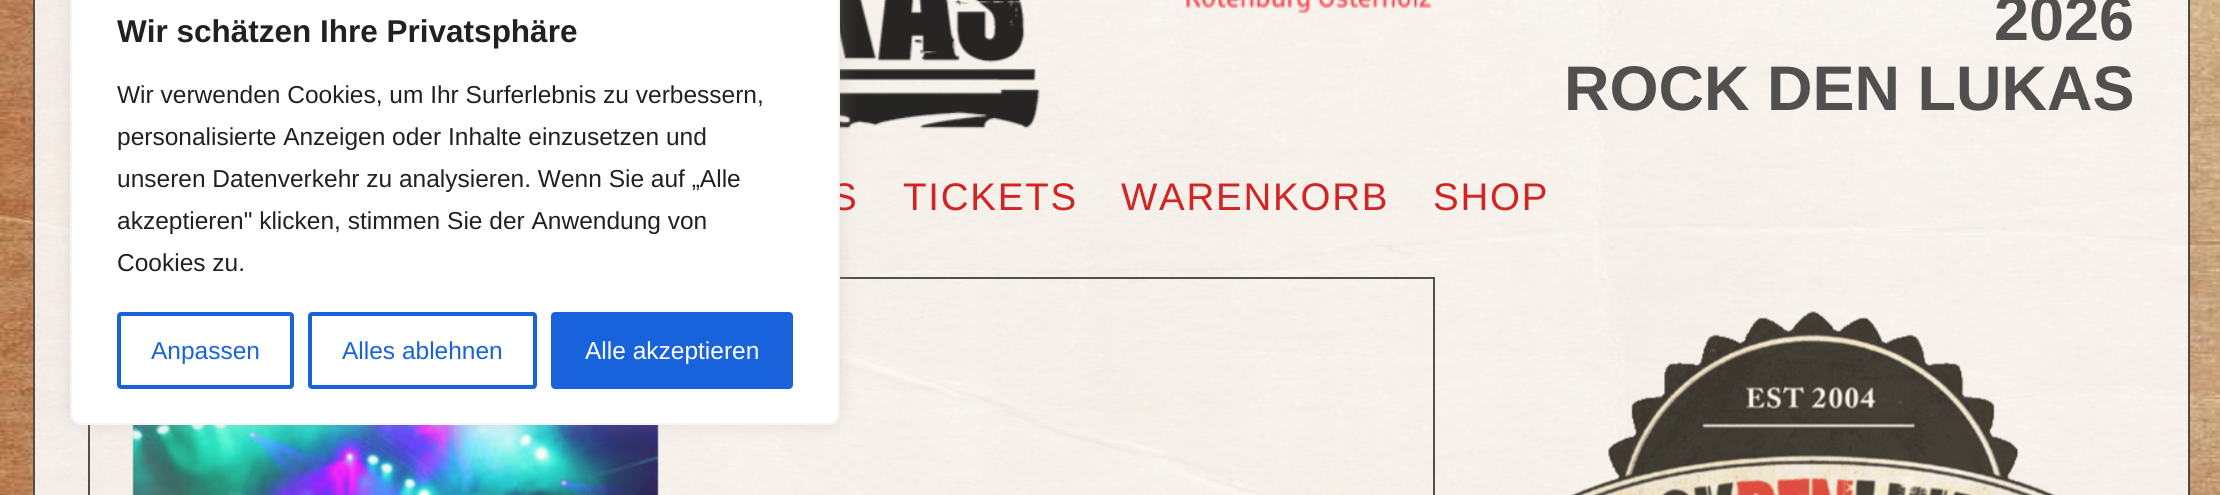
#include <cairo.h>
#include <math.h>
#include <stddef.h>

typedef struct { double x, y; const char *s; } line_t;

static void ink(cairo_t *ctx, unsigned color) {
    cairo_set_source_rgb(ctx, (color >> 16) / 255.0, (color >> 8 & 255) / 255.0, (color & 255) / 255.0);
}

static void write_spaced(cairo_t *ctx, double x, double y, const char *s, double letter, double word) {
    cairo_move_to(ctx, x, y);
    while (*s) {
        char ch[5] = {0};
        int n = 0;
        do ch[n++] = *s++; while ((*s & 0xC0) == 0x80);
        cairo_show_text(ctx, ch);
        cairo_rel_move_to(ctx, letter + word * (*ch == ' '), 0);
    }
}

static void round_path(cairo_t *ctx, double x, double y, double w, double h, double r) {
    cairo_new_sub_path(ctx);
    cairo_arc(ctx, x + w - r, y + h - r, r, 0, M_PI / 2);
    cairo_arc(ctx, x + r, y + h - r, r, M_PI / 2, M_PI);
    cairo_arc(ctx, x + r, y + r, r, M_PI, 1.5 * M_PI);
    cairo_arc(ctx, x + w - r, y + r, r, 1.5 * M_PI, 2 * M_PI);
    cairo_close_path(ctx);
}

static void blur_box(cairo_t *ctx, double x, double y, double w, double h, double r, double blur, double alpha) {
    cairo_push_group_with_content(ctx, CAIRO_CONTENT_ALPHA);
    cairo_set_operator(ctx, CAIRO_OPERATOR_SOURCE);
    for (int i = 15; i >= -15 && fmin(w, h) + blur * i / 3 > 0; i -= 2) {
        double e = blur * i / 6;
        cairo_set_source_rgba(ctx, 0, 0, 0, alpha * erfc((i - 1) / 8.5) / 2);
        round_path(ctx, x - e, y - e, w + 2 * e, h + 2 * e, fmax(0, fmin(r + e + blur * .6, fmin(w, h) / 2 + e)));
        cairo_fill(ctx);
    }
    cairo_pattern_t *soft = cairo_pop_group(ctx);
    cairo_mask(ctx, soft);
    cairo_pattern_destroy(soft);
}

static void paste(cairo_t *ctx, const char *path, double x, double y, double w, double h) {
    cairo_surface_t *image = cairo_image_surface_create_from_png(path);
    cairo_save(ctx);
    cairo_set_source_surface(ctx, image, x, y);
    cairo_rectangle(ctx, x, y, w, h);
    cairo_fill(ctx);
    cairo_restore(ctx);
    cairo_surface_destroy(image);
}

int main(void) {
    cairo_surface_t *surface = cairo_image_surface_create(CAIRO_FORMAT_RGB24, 2220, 495);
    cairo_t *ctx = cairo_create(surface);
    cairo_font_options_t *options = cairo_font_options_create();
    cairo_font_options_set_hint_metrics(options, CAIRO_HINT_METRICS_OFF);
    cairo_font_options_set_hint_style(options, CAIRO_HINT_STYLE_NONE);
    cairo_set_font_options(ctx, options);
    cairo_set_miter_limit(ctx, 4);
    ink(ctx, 0xFFFFFF);
    cairo_paint(ctx);
    paste(ctx, "media/1.png", 0, 0, 2220, 495);
    paste(ctx, "media/2.png", 840, 0, 200, 129);
    cairo_rectangle(ctx, 89, 278, 1345, 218);
    cairo_set_source_rgba(ctx, 0.2, 0.2, 0.2, 0.85);
    cairo_stroke(ctx);
    paste(ctx, "media/4.png", 132, 425, 527, 70);
    ink(ctx, 0xACABAB);
    blur_box(ctx, 70, -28, 770, 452, 11, 9, 0.3);
    cairo_select_font_face(ctx, "Liberation Sans", CAIRO_FONT_SLANT_NORMAL, CAIRO_FONT_WEIGHT_NORMAL);
    cairo_set_font_size(ctx, 38.5);
    ink(ctx, 0xD22423);
    write_spaced(ctx, 831, 210, "S", 1.75, 0);
    ink(ctx, 0xFFFFFF);
    round_path(ctx, 71, -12, 768, 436, 10);
    cairo_fill_preserve(ctx);
    ink(ctx, 0xF4F4F4);
    cairo_stroke(ctx);
    cairo_select_font_face(ctx, "Liberation Sans", CAIRO_FONT_SLANT_NORMAL, CAIRO_FONT_WEIGHT_BOLD);
    cairo_set_font_size(ctx, 31.5);
    ink(ctx, 0x212121);
    cairo_move_to(ctx, 117, 42);
    cairo_show_text(ctx, "Wir schätzen Ihre Privatsphäre");
    cairo_select_font_face(ctx, "Liberation Sans", CAIRO_FONT_SLANT_NORMAL, CAIRO_FONT_WEIGHT_NORMAL);
    cairo_set_font_size(ctx, 24.5);
    {
        static const line_t items[] = {
            {117, 103, "Wir verwenden Cookies, um Ihr Surferlebnis zu verbessern,"},
            {117, 145, "personalisierte Anzeigen oder Inhalte einzusetzen und"},
            {117, 187, "unseren Datenverkehr zu analysieren. Wenn Sie auf „Alle"},
            {117, 229, "akzeptieren\" klicken, stimmen Sie der Anwendung von"},
            {117, 271, "Cookies zu."},
        };
        for (size_t i = 0; i < sizeof items / sizeof *items; i++) {
            cairo_move_to(ctx, items[i].x, items[i].y);
            cairo_show_text(ctx, items[i].s);
        }
    }
    round_path(ctx, 119, 314, 173, 73, 2);
    ink(ctx, 0x1863DC);
    cairo_set_line_width(ctx, 4);
    cairo_stroke(ctx);
    cairo_move_to(ctx, 151, 359);
    cairo_show_text(ctx, "Anpassen");
    round_path(ctx, 310, 314, 225, 73, 2);
    cairo_stroke(ctx);
    cairo_move_to(ctx, 342, 359);
    cairo_show_text(ctx, "Alles ablehnen");
    round_path(ctx, 553, 314, 238, 73, 2);
    cairo_fill_preserve(ctx);
    cairo_stroke(ctx);
    ink(ctx, 0xFFFFFF);
    cairo_move_to(ctx, 585, 359);
    cairo_show_text(ctx, "Alle akzeptieren");
    cairo_set_source_rgba(ctx, 0.2, 0.2, 0.2, 0.85);
    cairo_rectangle(ctx, 2188, 0, 2, 495);
    cairo_fill(ctx);
    cairo_rectangle(ctx, 33, 0, 2, 495);
    cairo_fill(ctx);
    paste(ctx, "media/3.png", 1185, 0, 247, 14);
    cairo_select_font_face(ctx, "Liberation Sans", CAIRO_FONT_SLANT_NORMAL, CAIRO_FONT_WEIGHT_BOLD);
    cairo_set_font_size(ctx, 63);
    ink(ctx, 0x51504F);
    cairo_move_to(ctx, 1994, 40);
    cairo_show_text(ctx, "2026");
    cairo_move_to(ctx, 1564, 110);
    cairo_show_text(ctx, "ROCK DEN LUKAS");
    cairo_select_font_face(ctx, "Liberation Sans", CAIRO_FONT_SLANT_NORMAL, CAIRO_FONT_WEIGHT_NORMAL);
    cairo_set_font_size(ctx, 38.5);
    ink(ctx, 0xD22423);
    {
        static const line_t items[] = {
            {903, 210, "TICKETS"},
            {1121, 210, "WARENKORB"},
            {1433, 210, "SHOP"},
        };
        for (size_t i = 0; i < sizeof items / sizeof *items; i++) {
            write_spaced(ctx, items[i].x, items[i].y, items[i].s, 1.75, 0);
        }
    }
    paste(ctx, "media/5.png", 1570, 311, 486, 184);
    cairo_surface_write_to_png(surface, "image.png");
    cairo_font_options_destroy(options);
    cairo_destroy(ctx);
    cairo_surface_destroy(surface);
    return 0;
}
